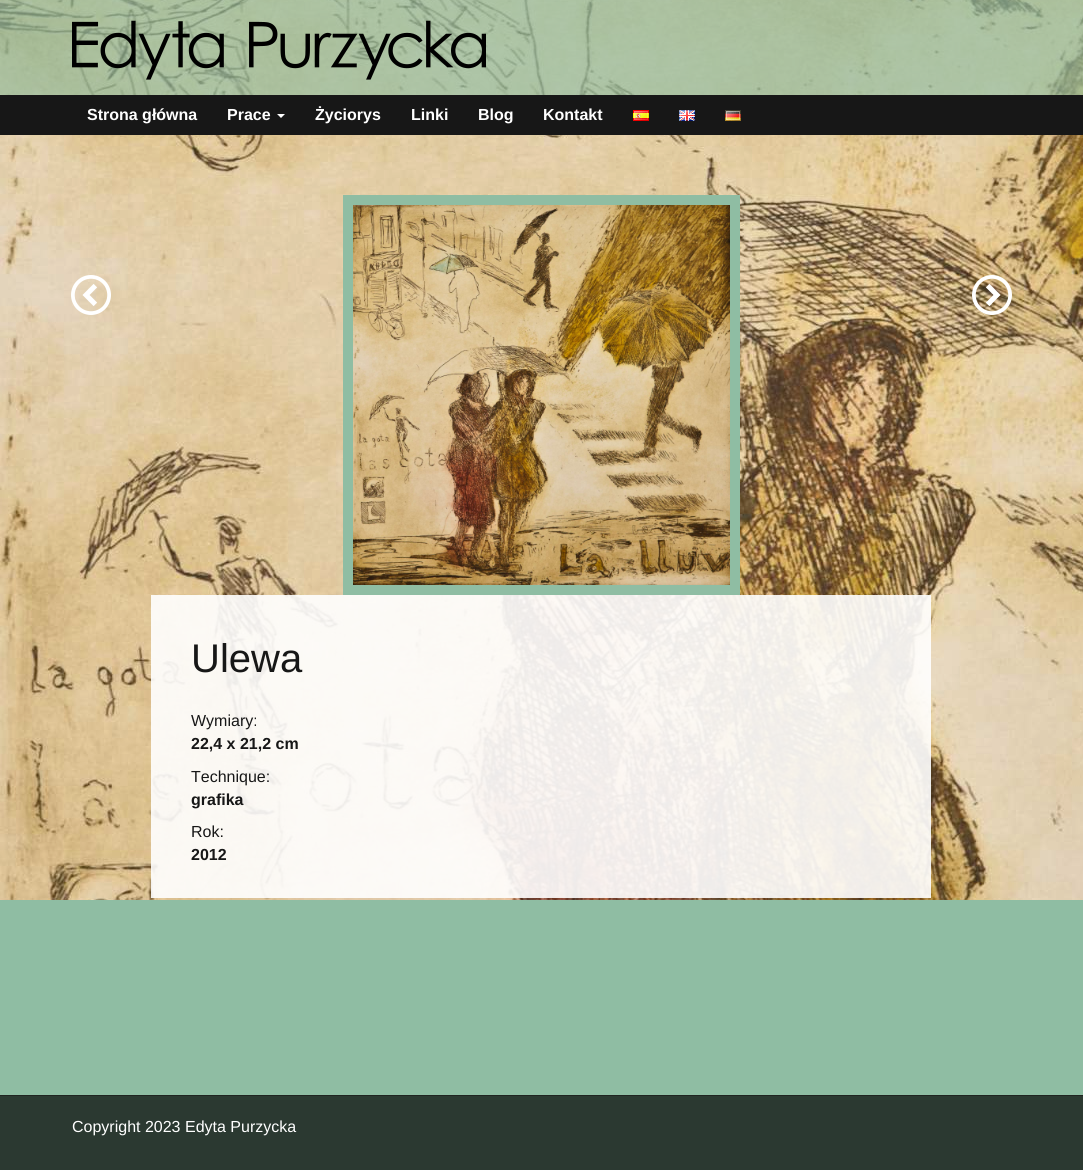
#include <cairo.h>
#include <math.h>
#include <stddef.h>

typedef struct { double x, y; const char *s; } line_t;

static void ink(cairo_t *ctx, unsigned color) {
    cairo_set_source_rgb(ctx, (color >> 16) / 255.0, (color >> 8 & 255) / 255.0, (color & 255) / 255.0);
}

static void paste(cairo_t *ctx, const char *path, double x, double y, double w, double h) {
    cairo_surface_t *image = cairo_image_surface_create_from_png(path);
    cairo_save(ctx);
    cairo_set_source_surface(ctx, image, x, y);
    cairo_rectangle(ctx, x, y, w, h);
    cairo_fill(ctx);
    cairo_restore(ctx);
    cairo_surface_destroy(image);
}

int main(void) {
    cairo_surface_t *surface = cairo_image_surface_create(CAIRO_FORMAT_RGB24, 1083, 1170);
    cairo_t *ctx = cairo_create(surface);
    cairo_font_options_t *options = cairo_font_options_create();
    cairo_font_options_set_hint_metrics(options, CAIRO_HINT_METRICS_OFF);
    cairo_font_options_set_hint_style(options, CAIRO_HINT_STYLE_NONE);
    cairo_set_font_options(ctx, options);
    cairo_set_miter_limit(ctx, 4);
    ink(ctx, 0x8FBDA3);
    cairo_paint(ctx);
    paste(ctx, "media/1.png", 0, 0, 1083, 900);
    cairo_set_source_rgba(ctx, 0.561, 0.741, 0.639, 0.65);
    cairo_rectangle(ctx, 0, 0, 1083, 95);
    cairo_fill(ctx);
    paste(ctx, "media/2.png", 72, 20, 414, 60);
    ink(ctx, 0x171717);
    cairo_rectangle(ctx, 0, 95, 1083, 40);
    cairo_fill(ctx);
    cairo_select_font_face(ctx, "Liberation Sans", CAIRO_FONT_SLANT_NORMAL, CAIRO_FONT_WEIGHT_BOLD);
    cairo_set_font_size(ctx, 16);
    ink(ctx, 0xFFFFFF);
    cairo_move_to(ctx, 87, 120);
    cairo_show_text(ctx, "Strona główna");
    cairo_move_to(ctx, 227, 120);
    cairo_show_text(ctx, "Prace");
    cairo_new_path(ctx);
    cairo_move_to(ctx, 277, 114);
    cairo_line_to(ctx, 285, 114);
    cairo_line_to(ctx, 281, 118);
    cairo_close_path(ctx);
    cairo_fill(ctx);
    {
        static const line_t items[] = {
            {315, 120, "Życiorys"},
            {411, 120, "Linki"},
            {478, 120, "Blog"},
            {543, 120, "Kontakt"},
        };
        for (size_t i = 0; i < sizeof items / sizeof *items; i++) {
            cairo_move_to(ctx, items[i].x, items[i].y);
            cairo_show_text(ctx, items[i].s);
        }
    }
    paste(ctx, "media/3.png", 633, 110, 16, 11);
    paste(ctx, "media/4.png", 679, 110, 16, 11);
    paste(ctx, "media/5.png", 725, 110, 16, 11);
    paste(ctx, "media/6.png", 71, 275, 40, 40);
    paste(ctx, "media/7.png", 972, 275, 40, 40);
    cairo_rectangle(ctx, 348, 200, 387, 390);
    ink(ctx, 0x8FBDA3);
    cairo_set_line_width(ctx, 10);
    cairo_stroke(ctx);
    paste(ctx, "media/8.png", 353, 205, 377, 380);
    cairo_set_source_rgba(ctx, 1, 1, 1, 0.9);
    cairo_rectangle(ctx, 151, 595, 780, 303);
    cairo_fill(ctx);
    cairo_select_font_face(ctx, "Liberation Sans", CAIRO_FONT_SLANT_NORMAL, CAIRO_FONT_WEIGHT_NORMAL);
    cairo_set_font_size(ctx, 40);
    ink(ctx, 0x171717);
    cairo_move_to(ctx, 191, 672);
    cairo_show_text(ctx, "Ulewa");
    cairo_set_font_size(ctx, 16);
    cairo_move_to(ctx, 191, 726);
    cairo_show_text(ctx, "Wymiary:");
    cairo_select_font_face(ctx, "Liberation Sans", CAIRO_FONT_SLANT_NORMAL, CAIRO_FONT_WEIGHT_BOLD);
    cairo_move_to(ctx, 191, 749);
    cairo_show_text(ctx, "22,4 x 21,2 cm");
    cairo_select_font_face(ctx, "Liberation Sans", CAIRO_FONT_SLANT_NORMAL, CAIRO_FONT_WEIGHT_NORMAL);
    cairo_move_to(ctx, 191, 782);
    cairo_show_text(ctx, "Technique:");
    cairo_select_font_face(ctx, "Liberation Sans", CAIRO_FONT_SLANT_NORMAL, CAIRO_FONT_WEIGHT_BOLD);
    cairo_move_to(ctx, 191, 805);
    cairo_show_text(ctx, "grafika");
    cairo_select_font_face(ctx, "Liberation Sans", CAIRO_FONT_SLANT_NORMAL, CAIRO_FONT_WEIGHT_NORMAL);
    cairo_move_to(ctx, 191, 837);
    cairo_show_text(ctx, "Rok:");
    cairo_select_font_face(ctx, "Liberation Sans", CAIRO_FONT_SLANT_NORMAL, CAIRO_FONT_WEIGHT_BOLD);
    cairo_move_to(ctx, 191, 860);
    cairo_show_text(ctx, "2012");
    ink(ctx, 0x2B3931);
    cairo_rectangle(ctx, 0, 1096, 1083, 74);
    cairo_fill(ctx);
    ink(ctx, 0x1F2521);
    cairo_rectangle(ctx, 0, 1095, 1083, 1);
    cairo_fill(ctx);
    cairo_select_font_face(ctx, "Liberation Sans", CAIRO_FONT_SLANT_NORMAL, CAIRO_FONT_WEIGHT_NORMAL);
    ink(ctx, 0xFFFFFF);
    cairo_move_to(ctx, 72, 1132);
    cairo_show_text(ctx, "Copyright 2023 Edyta Purzycka");
    cairo_surface_write_to_png(surface, "image.png");
    cairo_font_options_destroy(options);
    cairo_destroy(ctx);
    cairo_surface_destroy(surface);
    return 0;
}
